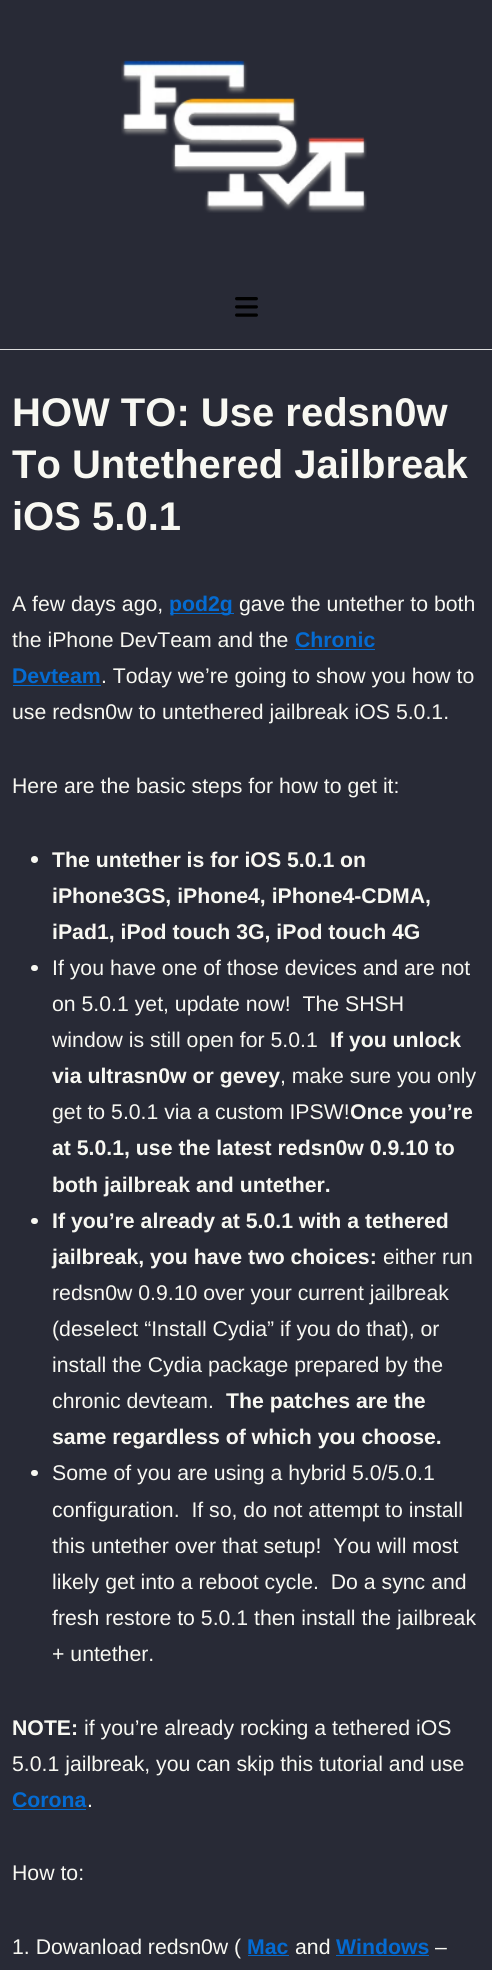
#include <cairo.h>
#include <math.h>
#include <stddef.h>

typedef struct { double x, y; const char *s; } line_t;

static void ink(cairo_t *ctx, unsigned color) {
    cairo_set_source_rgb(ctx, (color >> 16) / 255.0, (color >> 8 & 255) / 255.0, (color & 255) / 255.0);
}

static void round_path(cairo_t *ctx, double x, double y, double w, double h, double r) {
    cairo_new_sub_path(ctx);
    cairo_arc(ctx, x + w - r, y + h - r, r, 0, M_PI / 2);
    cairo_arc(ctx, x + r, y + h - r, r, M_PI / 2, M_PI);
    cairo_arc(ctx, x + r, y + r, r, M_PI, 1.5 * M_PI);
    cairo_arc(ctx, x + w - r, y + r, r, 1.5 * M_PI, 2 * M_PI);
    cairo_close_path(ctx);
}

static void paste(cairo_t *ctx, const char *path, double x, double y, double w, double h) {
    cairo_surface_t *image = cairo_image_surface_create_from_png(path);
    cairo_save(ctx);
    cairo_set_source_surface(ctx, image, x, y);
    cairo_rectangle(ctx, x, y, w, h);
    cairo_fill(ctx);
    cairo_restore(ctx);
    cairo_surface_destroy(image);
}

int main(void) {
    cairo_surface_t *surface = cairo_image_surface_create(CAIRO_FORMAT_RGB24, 492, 1970);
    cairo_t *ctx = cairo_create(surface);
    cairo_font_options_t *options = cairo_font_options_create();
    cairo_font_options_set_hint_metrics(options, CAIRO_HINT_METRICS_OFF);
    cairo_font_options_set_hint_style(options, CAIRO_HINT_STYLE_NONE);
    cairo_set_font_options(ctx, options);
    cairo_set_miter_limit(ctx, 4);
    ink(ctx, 0x282A36);
    cairo_paint(ctx);
    ink(ctx, 0xDDDDDD);
    cairo_rectangle(ctx, 0, 349, 492, 1);
    cairo_fill(ctx);
    paste(ctx, "media/1.png", 121, 60, 246, 153);
    paste(ctx, "media/2.png", 235, 297, 23, 20);
    cairo_select_font_face(ctx, "Liberation Sans", CAIRO_FONT_SLANT_NORMAL, CAIRO_FONT_WEIGHT_BOLD);
    cairo_set_font_size(ctx, 40);
    ink(ctx, 0xF8F8F2);
    {
        static const line_t items[] = {
            {12, 426, "HOW TO: Use redsn0w"},
            {12, 478, "To Untethered Jailbreak"},
            {12, 530, "iOS 5.0.1"},
        };
        for (size_t i = 0; i < sizeof items / sizeof *items; i++) {
            cairo_move_to(ctx, items[i].x, items[i].y);
            cairo_show_text(ctx, items[i].s);
        }
    }
    cairo_select_font_face(ctx, "Liberation Sans", CAIRO_FONT_SLANT_NORMAL, CAIRO_FONT_WEIGHT_NORMAL);
    cairo_set_font_size(ctx, 21.25);
    cairo_move_to(ctx, 12, 611);
    cairo_show_text(ctx, "A few days ago,");
    ink(ctx, 0x046BD2);
    cairo_rectangle(ctx, 170, 613, 64, 1);
    cairo_fill(ctx);
    cairo_select_font_face(ctx, "Liberation Sans", CAIRO_FONT_SLANT_NORMAL, CAIRO_FONT_WEIGHT_BOLD);
    cairo_move_to(ctx, 169, 611);
    cairo_show_text(ctx, "pod2g");
    cairo_select_font_face(ctx, "Liberation Sans", CAIRO_FONT_SLANT_NORMAL, CAIRO_FONT_WEIGHT_NORMAL);
    ink(ctx, 0xF8F8F2);
    cairo_move_to(ctx, 239, 611);
    cairo_show_text(ctx, "gave the untether to both");
    cairo_move_to(ctx, 12, 647);
    cairo_show_text(ctx, "the iPhone DevTeam and the");
    cairo_select_font_face(ctx, "Liberation Sans", CAIRO_FONT_SLANT_NORMAL, CAIRO_FONT_WEIGHT_BOLD);
    ink(ctx, 0x046BD2);
    cairo_move_to(ctx, 295, 647);
    cairo_show_text(ctx, "Chronic");
    cairo_rectangle(ctx, 295, 649, 80, 1);
    cairo_fill(ctx);
    cairo_move_to(ctx, 12, 683);
    cairo_show_text(ctx, "Devteam");
    cairo_rectangle(ctx, 13, 685, 88, 1);
    cairo_fill(ctx);
    cairo_select_font_face(ctx, "Liberation Sans", CAIRO_FONT_SLANT_NORMAL, CAIRO_FONT_WEIGHT_NORMAL);
    ink(ctx, 0xF8F8F2);
    {
        static const line_t items[] = {
            {101, 683, ". Today we’re going to show you how to"},
            {12, 719, "use redsn0w to untethered jailbreak iOS 5.0.1."},
            {12, 793, "Here are the basic steps for how to get it:"},
        };
        for (size_t i = 0; i < sizeof items / sizeof *items; i++) {
            cairo_move_to(ctx, items[i].x, items[i].y);
            cairo_show_text(ctx, items[i].s);
        }
    }
    cairo_new_path(ctx);
    cairo_arc(ctx, 34.5, 859.5, 3.5, 0, 2 * M_PI);
    cairo_fill(ctx);
    cairo_select_font_face(ctx, "Liberation Sans", CAIRO_FONT_SLANT_NORMAL, CAIRO_FONT_WEIGHT_BOLD);
    {
        static const line_t items[] = {
            {52, 867, "The untether is for iOS 5.0.1 on"},
            {52, 903, "iPhone3GS, iPhone4, iPhone4-CDMA,"},
            {52, 939, "iPad1, iPod touch 3G, iPod touch 4G"},
        };
        for (size_t i = 0; i < sizeof items / sizeof *items; i++) {
            cairo_move_to(ctx, items[i].x, items[i].y);
            cairo_show_text(ctx, items[i].s);
        }
    }
    round_path(ctx, 31, 965, 7, 6, 3);
    cairo_fill(ctx);
    cairo_select_font_face(ctx, "Liberation Sans", CAIRO_FONT_SLANT_NORMAL, CAIRO_FONT_WEIGHT_NORMAL);
    {
        static const line_t items[] = {
            {52, 975, "If you have one of those devices and are not"},
            {52, 1011, "on 5.0.1 yet, update now!  The SHSH"},
            {52, 1047, "window is still open for 5.0.1"},
        };
        for (size_t i = 0; i < sizeof items / sizeof *items; i++) {
            cairo_move_to(ctx, items[i].x, items[i].y);
            cairo_show_text(ctx, items[i].s);
        }
    }
    cairo_select_font_face(ctx, "Liberation Sans", CAIRO_FONT_SLANT_NORMAL, CAIRO_FONT_WEIGHT_BOLD);
    cairo_move_to(ctx, 330, 1047);
    cairo_show_text(ctx, "If you unlock");
    cairo_move_to(ctx, 52, 1083);
    cairo_show_text(ctx, "via ultrasn0w or gevey");
    cairo_select_font_face(ctx, "Liberation Sans", CAIRO_FONT_SLANT_NORMAL, CAIRO_FONT_WEIGHT_NORMAL);
    cairo_move_to(ctx, 280, 1083);
    cairo_show_text(ctx, ", make sure you only");
    cairo_move_to(ctx, 52, 1119);
    cairo_show_text(ctx, "get to 5.0.1 via a custom IPSW!");
    cairo_select_font_face(ctx, "Liberation Sans", CAIRO_FONT_SLANT_NORMAL, CAIRO_FONT_WEIGHT_BOLD);
    {
        static const line_t items[] = {
            {350, 1119, "Once you’re"},
            {52, 1155, "at 5.0.1, use the latest redsn0w 0.9.10 to"},
            {52, 1192, "both jailbreak and untether."},
        };
        for (size_t i = 0; i < sizeof items / sizeof *items; i++) {
            cairo_move_to(ctx, items[i].x, items[i].y);
            cairo_show_text(ctx, items[i].s);
        }
    }
    round_path(ctx, 31, 1218, 7, 6, 3);
    cairo_fill(ctx);
    cairo_move_to(ctx, 52, 1228);
    cairo_show_text(ctx, "If you’re already at 5.0.1 with a tethered");
    cairo_move_to(ctx, 52, 1264);
    cairo_show_text(ctx, "jailbreak, you have two choices:");
    cairo_select_font_face(ctx, "Liberation Sans", CAIRO_FONT_SLANT_NORMAL, CAIRO_FONT_WEIGHT_NORMAL);
    {
        static const line_t items[] = {
            {383, 1264, "either run"},
            {52, 1300, "redsn0w 0.9.10 over your current jailbreak"},
            {52, 1336, "(deselect “Install Cydia” if you do that), or"},
            {52, 1372, "install the Cydia package prepared by the"},
            {52, 1408, "chronic devteam."},
        };
        for (size_t i = 0; i < sizeof items / sizeof *items; i++) {
            cairo_move_to(ctx, items[i].x, items[i].y);
            cairo_show_text(ctx, items[i].s);
        }
    }
    cairo_select_font_face(ctx, "Liberation Sans", CAIRO_FONT_SLANT_NORMAL, CAIRO_FONT_WEIGHT_BOLD);
    cairo_move_to(ctx, 226, 1408);
    cairo_show_text(ctx, "The patches are the");
    cairo_move_to(ctx, 52, 1444);
    cairo_show_text(ctx, "same regardless of which you choose.");
    round_path(ctx, 31, 1470, 7, 6, 3);
    cairo_fill(ctx);
    cairo_select_font_face(ctx, "Liberation Sans", CAIRO_FONT_SLANT_NORMAL, CAIRO_FONT_WEIGHT_NORMAL);
    {
        static const line_t items[] = {
            {52, 1480, "Some of you are using a hybrid 5.0/5.0.1"},
            {52, 1517, "configuration.  If so, do not attempt to install"},
            {52, 1553, "this untether over that setup!  You will most"},
            {52, 1589, "likely get into a reboot cycle.  Do a sync and"},
            {52, 1625, "fresh restore to 5.0.1 then install the jailbreak"},
            {52, 1661, "+ untether."},
        };
        for (size_t i = 0; i < sizeof items / sizeof *items; i++) {
            cairo_move_to(ctx, items[i].x, items[i].y);
            cairo_show_text(ctx, items[i].s);
        }
    }
    cairo_select_font_face(ctx, "Liberation Sans", CAIRO_FONT_SLANT_NORMAL, CAIRO_FONT_WEIGHT_BOLD);
    cairo_move_to(ctx, 12, 1735);
    cairo_show_text(ctx, "NOTE:");
    cairo_select_font_face(ctx, "Liberation Sans", CAIRO_FONT_SLANT_NORMAL, CAIRO_FONT_WEIGHT_NORMAL);
    cairo_move_to(ctx, 84, 1735);
    cairo_show_text(ctx, "if you’re already rocking a tethered iOS");
    cairo_move_to(ctx, 12, 1771);
    cairo_show_text(ctx, "5.0.1 jailbreak, you can skip this tutorial and use");
    cairo_select_font_face(ctx, "Liberation Sans", CAIRO_FONT_SLANT_NORMAL, CAIRO_FONT_WEIGHT_BOLD);
    ink(ctx, 0x046BD2);
    cairo_move_to(ctx, 12, 1807);
    cairo_show_text(ctx, "Corona");
    cairo_rectangle(ctx, 13, 1809, 73, 1);
    cairo_fill(ctx);
    cairo_select_font_face(ctx, "Liberation Sans", CAIRO_FONT_SLANT_NORMAL, CAIRO_FONT_WEIGHT_NORMAL);
    ink(ctx, 0xF8F8F2);
    {
        static const line_t items[] = {
            {87, 1807, "."},
            {12, 1880, "How to:"},
            {12, 1954, "1. Dowanload redsn0w ("},
        };
        for (size_t i = 0; i < sizeof items / sizeof *items; i++) {
            cairo_move_to(ctx, items[i].x, items[i].y);
            cairo_show_text(ctx, items[i].s);
        }
    }
    cairo_select_font_face(ctx, "Liberation Sans", CAIRO_FONT_SLANT_NORMAL, CAIRO_FONT_WEIGHT_BOLD);
    ink(ctx, 0x046BD2);
    cairo_move_to(ctx, 247, 1954);
    cairo_show_text(ctx, "Mac");
    cairo_rectangle(ctx, 248, 1955, 41, 1);
    cairo_fill(ctx);
    cairo_select_font_face(ctx, "Liberation Sans", CAIRO_FONT_SLANT_NORMAL, CAIRO_FONT_WEIGHT_NORMAL);
    ink(ctx, 0xF8F8F2);
    cairo_move_to(ctx, 295, 1954);
    cairo_show_text(ctx, "and");
    cairo_select_font_face(ctx, "Liberation Sans", CAIRO_FONT_SLANT_NORMAL, CAIRO_FONT_WEIGHT_BOLD);
    ink(ctx, 0x046BD2);
    cairo_move_to(ctx, 336, 1954);
    cairo_show_text(ctx, "Windows");
    cairo_rectangle(ctx, 336, 1955, 93, 1);
    cairo_fill(ctx);
    cairo_select_font_face(ctx, "Liberation Sans", CAIRO_FONT_SLANT_NORMAL, CAIRO_FONT_WEIGHT_NORMAL);
    ink(ctx, 0xF8F8F2);
    cairo_move_to(ctx, 435, 1954);
    cairo_show_text(ctx, "–");
    cairo_surface_write_to_png(surface, "image.png");
    cairo_font_options_destroy(options);
    cairo_destroy(ctx);
    cairo_surface_destroy(surface);
    return 0;
}
